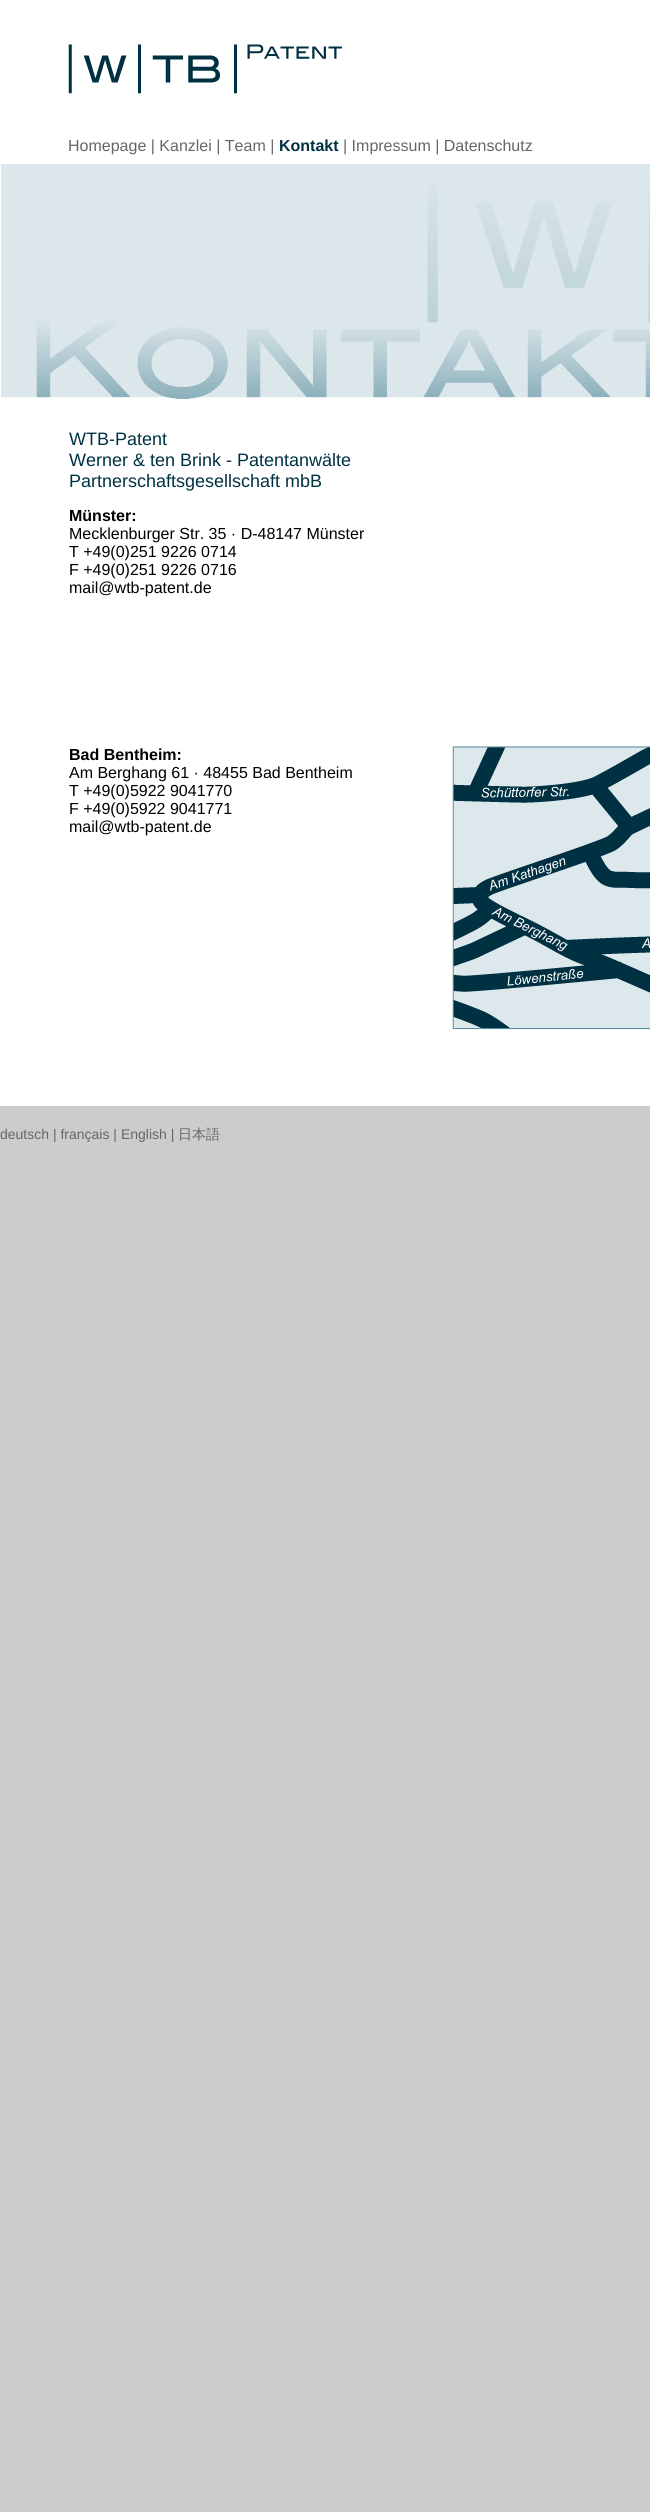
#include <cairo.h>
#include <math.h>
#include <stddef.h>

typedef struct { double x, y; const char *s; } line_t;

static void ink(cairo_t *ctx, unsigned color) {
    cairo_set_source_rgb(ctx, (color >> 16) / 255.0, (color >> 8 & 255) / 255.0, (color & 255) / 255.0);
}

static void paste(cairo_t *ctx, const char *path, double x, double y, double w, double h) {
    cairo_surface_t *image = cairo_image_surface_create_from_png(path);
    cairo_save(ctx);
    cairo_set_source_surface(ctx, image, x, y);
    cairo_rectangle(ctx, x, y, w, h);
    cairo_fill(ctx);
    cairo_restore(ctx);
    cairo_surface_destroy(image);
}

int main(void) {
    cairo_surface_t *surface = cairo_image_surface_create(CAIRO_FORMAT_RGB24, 650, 2512);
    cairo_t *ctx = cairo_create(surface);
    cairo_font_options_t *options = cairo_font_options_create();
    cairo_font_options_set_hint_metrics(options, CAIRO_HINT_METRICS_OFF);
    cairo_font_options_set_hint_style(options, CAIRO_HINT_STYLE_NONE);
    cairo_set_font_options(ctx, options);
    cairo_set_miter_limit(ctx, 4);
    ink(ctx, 0xCCCCCC);
    cairo_paint(ctx);
    ink(ctx, 0xFFFFFF);
    cairo_rectangle(ctx, 0, 0, 650, 1106);
    cairo_fill(ctx);
    paste(ctx, "media/1.png", 68, 44, 274, 50);
    cairo_select_font_face(ctx, "Liberation Sans", CAIRO_FONT_SLANT_NORMAL, CAIRO_FONT_WEIGHT_NORMAL);
    cairo_set_font_size(ctx, 16);
    ink(ctx, 0x666666);
    cairo_move_to(ctx, 68, 151);
    cairo_show_text(ctx, "Homepage | Kanzlei | Team |");
    cairo_select_font_face(ctx, "Liberation Sans", CAIRO_FONT_SLANT_NORMAL, CAIRO_FONT_WEIGHT_BOLD);
    ink(ctx, 0x003142);
    cairo_move_to(ctx, 279, 151);
    cairo_show_text(ctx, "Kontakt");
    cairo_select_font_face(ctx, "Liberation Sans", CAIRO_FONT_SLANT_NORMAL, CAIRO_FONT_WEIGHT_NORMAL);
    ink(ctx, 0x666666);
    cairo_move_to(ctx, 343, 151);
    cairo_show_text(ctx, "| Impressum | Datenschutz");
    paste(ctx, "media/2.png", 1, 164, 649, 235);
    cairo_set_font_size(ctx, 18);
    ink(ctx, 0x003142);
    {
        static const line_t items[] = {
            {69, 445, "WTB-Patent"},
            {69, 466, "Werner & ten Brink - Patentanwälte"},
            {69, 487, "Partnerschaftsgesellschaft mbB"},
        };
        for (size_t i = 0; i < sizeof items / sizeof *items; i++) {
            cairo_move_to(ctx, items[i].x, items[i].y);
            cairo_show_text(ctx, items[i].s);
        }
    }
    cairo_select_font_face(ctx, "Liberation Sans", CAIRO_FONT_SLANT_NORMAL, CAIRO_FONT_WEIGHT_BOLD);
    cairo_set_font_size(ctx, 16);
    ink(ctx, 0x000000);
    cairo_move_to(ctx, 69, 521);
    cairo_show_text(ctx, "Münster:");
    cairo_select_font_face(ctx, "Liberation Sans", CAIRO_FONT_SLANT_NORMAL, CAIRO_FONT_WEIGHT_NORMAL);
    {
        static const line_t items[] = {
            {69, 539, "Mecklenburger Str. 35 · D-48147 Münster"},
            {69, 557, "T +49(0)251 9226 0714"},
            {69, 575, "F +49(0)251 9226 0716"},
            {69, 593, "mail@wtb-patent.de"},
        };
        for (size_t i = 0; i < sizeof items / sizeof *items; i++) {
            cairo_move_to(ctx, items[i].x, items[i].y);
            cairo_show_text(ctx, items[i].s);
        }
    }
    cairo_select_font_face(ctx, "Liberation Sans", CAIRO_FONT_SLANT_NORMAL, CAIRO_FONT_WEIGHT_BOLD);
    cairo_move_to(ctx, 69, 760);
    cairo_show_text(ctx, "Bad Bentheim:");
    paste(ctx, "media/3.png", 452, 746, 198, 284);
    cairo_select_font_face(ctx, "Liberation Sans", CAIRO_FONT_SLANT_NORMAL, CAIRO_FONT_WEIGHT_NORMAL);
    {
        static const line_t items[] = {
            {69, 778, "Am Berghang 61 · 48455 Bad Bentheim"},
            {69, 796, "T +49(0)5922 9041770"},
            {69, 814, "F +49(0)5922 9041771"},
            {69, 832, "mail@wtb-patent.de"},
        };
        for (size_t i = 0; i < sizeof items / sizeof *items; i++) {
            cairo_move_to(ctx, items[i].x, items[i].y);
            cairo_show_text(ctx, items[i].s);
        }
    }
    cairo_set_font_size(ctx, 14);
    ink(ctx, 0x666666);
    cairo_move_to(ctx, 0, 1139);
    cairo_show_text(ctx, "deutsch | français | English |");
    cairo_select_font_face(ctx, "WenQuanYi Zen Hei Medium", CAIRO_FONT_SLANT_NORMAL, CAIRO_FONT_WEIGHT_NORMAL);
    cairo_move_to(ctx, 178, 1139);
    cairo_show_text(ctx, "日本語");
    cairo_surface_write_to_png(surface, "image.png");
    cairo_font_options_destroy(options);
    cairo_destroy(ctx);
    cairo_surface_destroy(surface);
    return 0;
}
